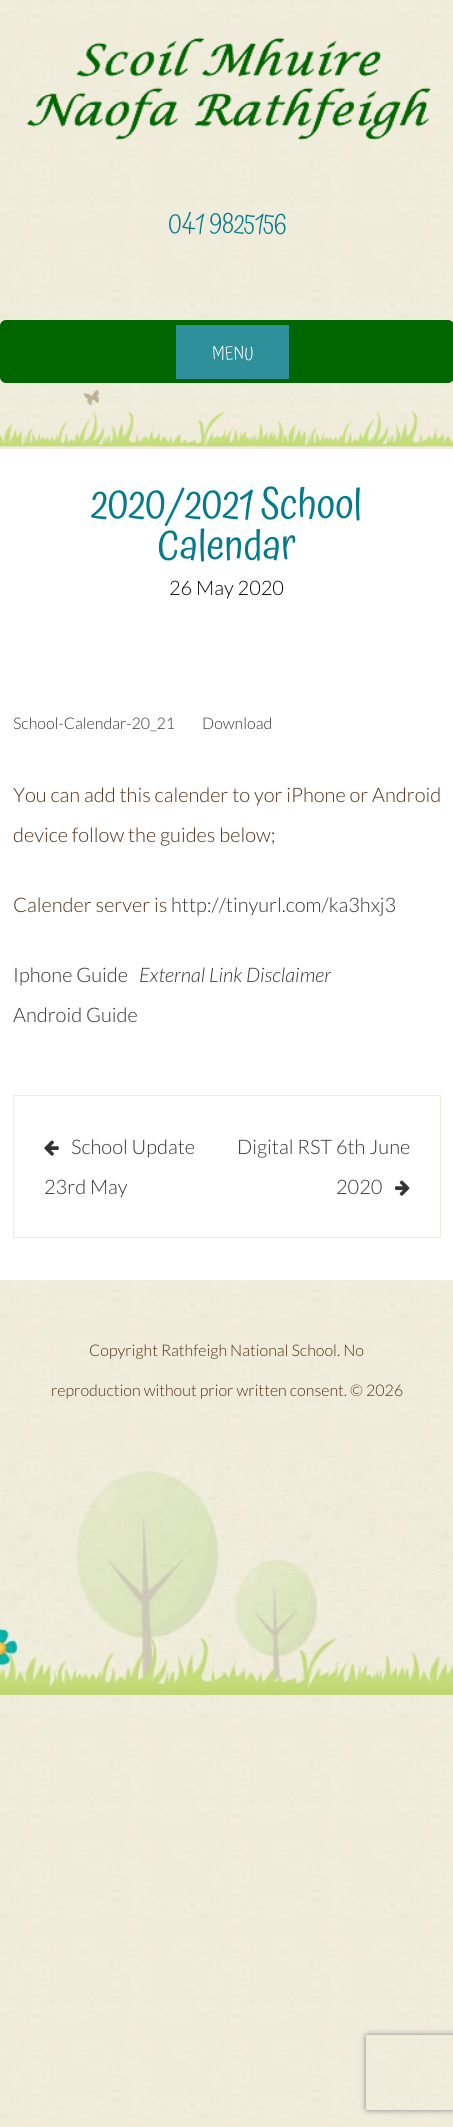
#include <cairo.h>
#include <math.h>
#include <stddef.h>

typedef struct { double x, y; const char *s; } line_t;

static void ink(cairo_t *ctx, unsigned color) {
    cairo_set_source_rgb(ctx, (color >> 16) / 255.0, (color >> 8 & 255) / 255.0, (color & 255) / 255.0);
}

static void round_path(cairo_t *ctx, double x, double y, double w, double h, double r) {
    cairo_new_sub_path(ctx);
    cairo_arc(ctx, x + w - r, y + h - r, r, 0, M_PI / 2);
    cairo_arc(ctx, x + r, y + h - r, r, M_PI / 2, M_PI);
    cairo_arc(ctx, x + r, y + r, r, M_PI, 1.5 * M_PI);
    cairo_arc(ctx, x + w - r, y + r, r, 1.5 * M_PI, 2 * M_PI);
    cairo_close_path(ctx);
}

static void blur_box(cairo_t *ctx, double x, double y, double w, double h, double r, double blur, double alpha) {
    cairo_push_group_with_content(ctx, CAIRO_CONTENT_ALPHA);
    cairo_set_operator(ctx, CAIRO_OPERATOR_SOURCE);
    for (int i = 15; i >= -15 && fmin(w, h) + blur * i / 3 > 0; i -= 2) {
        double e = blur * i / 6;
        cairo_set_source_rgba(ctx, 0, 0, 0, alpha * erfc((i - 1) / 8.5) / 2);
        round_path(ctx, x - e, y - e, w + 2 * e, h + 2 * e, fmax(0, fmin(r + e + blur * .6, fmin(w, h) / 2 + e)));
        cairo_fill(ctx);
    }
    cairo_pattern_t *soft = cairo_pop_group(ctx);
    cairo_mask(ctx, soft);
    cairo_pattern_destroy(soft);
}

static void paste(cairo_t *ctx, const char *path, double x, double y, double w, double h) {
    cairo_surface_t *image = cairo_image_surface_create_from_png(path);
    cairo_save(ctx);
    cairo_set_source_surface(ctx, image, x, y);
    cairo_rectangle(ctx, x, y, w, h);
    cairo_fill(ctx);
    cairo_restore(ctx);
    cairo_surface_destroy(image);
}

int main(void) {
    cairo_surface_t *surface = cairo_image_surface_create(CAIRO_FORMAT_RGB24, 453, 2127);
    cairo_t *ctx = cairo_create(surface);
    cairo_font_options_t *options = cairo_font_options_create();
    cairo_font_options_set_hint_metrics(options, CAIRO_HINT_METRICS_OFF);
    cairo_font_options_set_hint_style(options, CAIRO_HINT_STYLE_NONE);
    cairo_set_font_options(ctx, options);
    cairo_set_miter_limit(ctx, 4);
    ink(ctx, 0xFFFFFF);
    cairo_paint(ctx);
    paste(ctx, "media/1.png", 0, 0, 453, 2127);
    paste(ctx, "media/2.png", 26, 37, 404, 103);
    cairo_select_font_face(ctx, "Atma Light", CAIRO_FONT_SLANT_NORMAL, CAIRO_FONT_WEIGHT_NORMAL);
    cairo_set_font_size(ctx, 28);
    ink(ctx, 0x037B8D);
    cairo_move_to(ctx, 168, 233);
    cairo_show_text(ctx, "041 9825156");
    ink(ctx, 0x006600);
    round_path(ctx, 0, 320, 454, 63, 6);
    cairo_fill(ctx);
    ink(ctx, 0x2E909B);
    cairo_rectangle(ctx, 176, 325, 113, 54);
    cairo_fill(ctx);
    cairo_set_font_size(ctx, 17.5);
    ink(ctx, 0xFFFFFF);
    cairo_move_to(ctx, 212, 359);
    cairo_show_text(ctx, "MENU");
    paste(ctx, "media/3.png", 0, 389, 453, 58);
    cairo_rectangle(ctx, 0, 449, 453, 831);
    cairo_fill(ctx);
    cairo_select_font_face(ctx, "Atma", CAIRO_FONT_SLANT_NORMAL, CAIRO_FONT_WEIGHT_NORMAL);
    cairo_set_font_size(ctx, 41.25);
    ink(ctx, 0x037B8D);
    cairo_move_to(ctx, 91, 518);
    cairo_show_text(ctx, "2020/2021 School");
    cairo_move_to(ctx, 157, 559);
    cairo_show_text(ctx, "Calendar");
    cairo_select_font_face(ctx, "Lato Light", CAIRO_FONT_SLANT_NORMAL, CAIRO_FONT_WEIGHT_NORMAL);
    cairo_set_font_size(ctx, 20);
    ink(ctx, 0x000000);
    cairo_move_to(ctx, 169, 595);
    cairo_show_text(ctx, "26 May 2020");
    cairo_set_font_size(ctx, 16);
    ink(ctx, 0x333333);
    cairo_move_to(ctx, 13, 729);
    cairo_show_text(ctx, "School-Calendar-20_21");
    cairo_move_to(ctx, 202, 729);
    cairo_show_text(ctx, "Download");
    cairo_set_font_size(ctx, 20);
    ink(ctx, 0x532F15);
    {
        static const line_t items[] = {
            {13, 802, "You can add this calender to yor iPhone or Android"},
            {13, 842, "device follow the guides below;"},
            {13, 912, "Calender server is"},
        };
        for (size_t i = 0; i < sizeof items / sizeof *items; i++) {
            cairo_move_to(ctx, items[i].x, items[i].y);
            cairo_show_text(ctx, items[i].s);
        }
    }
    ink(ctx, 0x333333);
    cairo_move_to(ctx, 171, 912);
    cairo_show_text(ctx, "http://tinyurl.com/ka3hxj3");
    cairo_move_to(ctx, 13, 982);
    cairo_show_text(ctx, "Iphone Guide");
    cairo_select_font_face(ctx, "Lato Light", CAIRO_FONT_SLANT_ITALIC, CAIRO_FONT_WEIGHT_NORMAL);
    cairo_move_to(ctx, 139, 982);
    cairo_show_text(ctx, "External Link Disclaimer");
    cairo_select_font_face(ctx, "Lato Light", CAIRO_FONT_SLANT_NORMAL, CAIRO_FONT_WEIGHT_NORMAL);
    cairo_move_to(ctx, 13, 1022);
    cairo_show_text(ctx, "Android Guide");
    cairo_rectangle(ctx, 13.5, 1095.5, 427, 142);
    ink(ctx, 0xEFECDB);
    cairo_set_line_width(ctx, 1);
    cairo_stroke(ctx);
    paste(ctx, "media/4.png", 44, 1140, 15, 16);
    ink(ctx, 0x333333);
    {
        static const line_t items[] = {
            {71, 1154, "School Update"},
            {44, 1194, "23rd May"},
            {237, 1154, "Digital RST 6th June"},
            {336, 1194, "2020"},
        };
        for (size_t i = 0; i < sizeof items / sizeof *items; i++) {
            cairo_move_to(ctx, items[i].x, items[i].y);
            cairo_show_text(ctx, items[i].s);
        }
    }
    paste(ctx, "media/5.png", 395, 1180, 15, 16);
    cairo_set_font_size(ctx, 16);
    ink(ctx, 0x532F15);
    cairo_move_to(ctx, 89, 1356);
    cairo_show_text(ctx, "Copyright Rathfeigh National School. No");
    cairo_move_to(ctx, 51, 1396);
    cairo_show_text(ctx, "reproduction without prior written consent. © 2026");
    paste(ctx, "media/6.png", 0, 1693, 453, 2);
    paste(ctx, "media/7.png", 0, 1460, 453, 234);
    cairo_save(ctx);
    cairo_set_fill_rule(ctx, CAIRO_FILL_RULE_EVEN_ODD);
    cairo_new_path(ctx);
    cairo_move_to(ctx, 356, 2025);
    cairo_line_to(ctx, 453, 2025);
    cairo_line_to(ctx, 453, 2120);
    cairo_line_to(ctx, 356, 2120);
    cairo_close_path(ctx);
    cairo_move_to(ctx, 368.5, 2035);
    cairo_line_to(ctx, 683.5, 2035);
    cairo_curve_to(ctx, 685, 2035, 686, 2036, 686, 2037.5);
    cairo_line_to(ctx, 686, 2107.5);
    cairo_curve_to(ctx, 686, 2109, 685, 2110, 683.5, 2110);
    cairo_line_to(ctx, 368.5, 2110);
    cairo_curve_to(ctx, 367, 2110, 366, 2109, 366, 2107.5);
    cairo_line_to(ctx, 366, 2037.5);
    cairo_curve_to(ctx, 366, 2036, 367, 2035, 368.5, 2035);
    cairo_close_path(ctx);
    cairo_clip(ctx);
    ink(ctx, 0x808080);
    blur_box(ctx, 366, 2035, 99, 75, 2.5, 3, 1);
    cairo_restore(ctx);
    cairo_surface_write_to_png(surface, "image.png");
    cairo_font_options_destroy(options);
    cairo_destroy(ctx);
    cairo_surface_destroy(surface);
    return 0;
}
